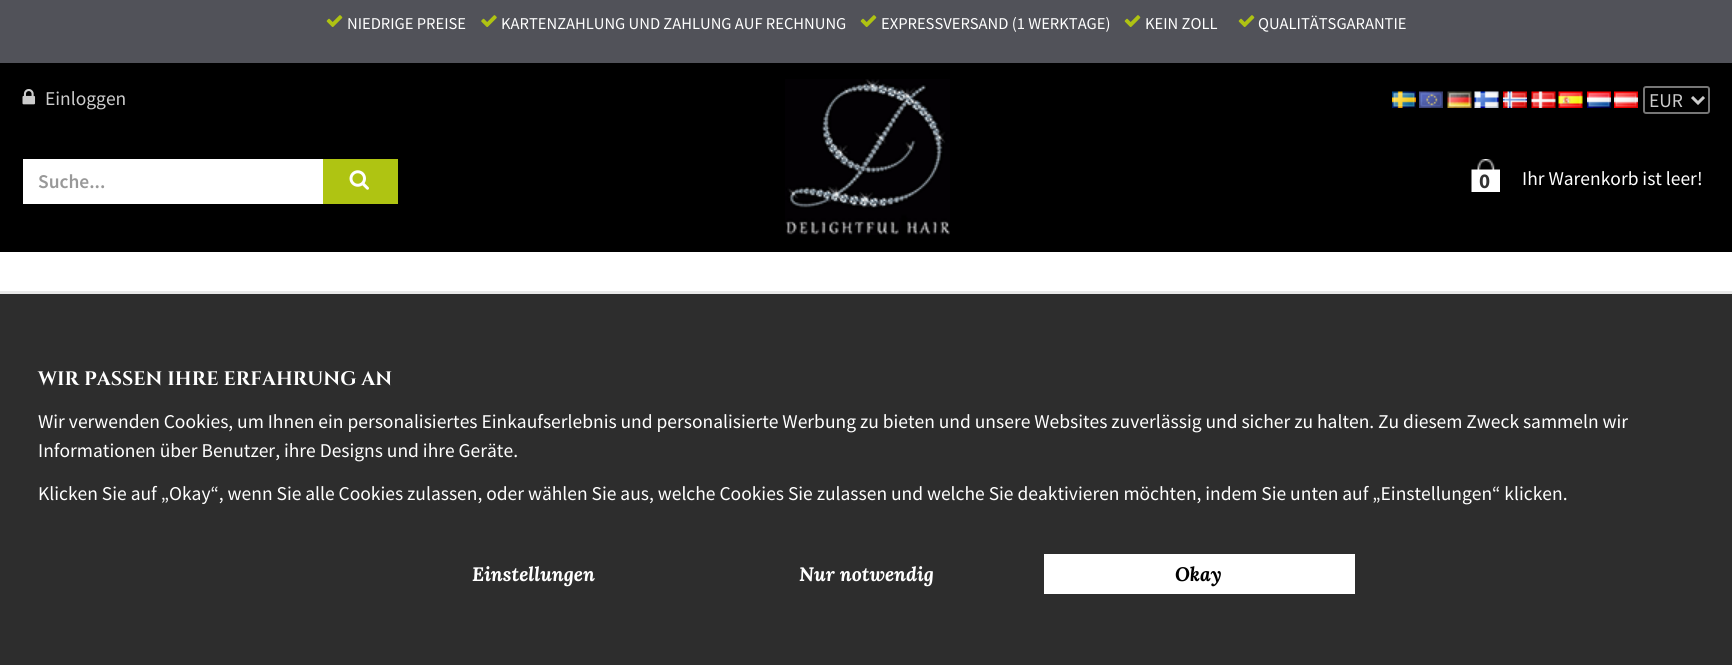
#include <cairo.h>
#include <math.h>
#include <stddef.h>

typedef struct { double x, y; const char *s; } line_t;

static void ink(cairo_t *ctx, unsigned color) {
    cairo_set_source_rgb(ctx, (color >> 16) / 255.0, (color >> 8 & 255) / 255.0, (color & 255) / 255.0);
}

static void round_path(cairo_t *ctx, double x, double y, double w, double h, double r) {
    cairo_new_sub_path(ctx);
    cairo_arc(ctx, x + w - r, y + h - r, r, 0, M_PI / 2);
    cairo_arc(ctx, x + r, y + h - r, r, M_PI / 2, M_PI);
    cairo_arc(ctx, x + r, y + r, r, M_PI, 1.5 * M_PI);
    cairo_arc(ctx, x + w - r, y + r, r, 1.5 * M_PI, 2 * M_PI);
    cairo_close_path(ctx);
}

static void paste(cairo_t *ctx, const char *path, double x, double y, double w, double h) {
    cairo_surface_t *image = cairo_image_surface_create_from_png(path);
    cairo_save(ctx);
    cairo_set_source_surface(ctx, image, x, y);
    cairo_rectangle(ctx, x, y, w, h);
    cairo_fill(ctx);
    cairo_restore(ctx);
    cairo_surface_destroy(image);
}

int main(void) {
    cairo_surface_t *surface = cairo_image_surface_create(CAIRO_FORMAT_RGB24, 1732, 665);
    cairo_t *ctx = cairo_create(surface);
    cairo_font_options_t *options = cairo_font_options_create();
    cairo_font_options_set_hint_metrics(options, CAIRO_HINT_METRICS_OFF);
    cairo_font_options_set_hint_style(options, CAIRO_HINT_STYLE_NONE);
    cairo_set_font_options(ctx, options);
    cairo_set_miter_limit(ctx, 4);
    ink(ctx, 0xFFFFFF);
    cairo_paint(ctx);
    ink(ctx, 0x515259);
    cairo_rectangle(ctx, 0, 0, 1732, 63);
    cairo_fill(ctx);
    paste(ctx, "media/1.png", 326, 15, 17, 12);
    cairo_select_font_face(ctx, "Source Sans Pro", CAIRO_FONT_SLANT_NORMAL, CAIRO_FONT_WEIGHT_NORMAL);
    cairo_set_font_size(ctx, 16.5);
    ink(ctx, 0xFFFFFF);
    cairo_move_to(ctx, 347, 29);
    cairo_show_text(ctx, "NIEDRIGE PREISE");
    paste(ctx, "media/2.png", 481, 15, 16, 12);
    cairo_move_to(ctx, 501, 29);
    cairo_show_text(ctx, "KARTENZAHLUNG UND ZAHLUNG AUF RECHNUNG");
    paste(ctx, "media/1.png", 860, 15, 17, 12);
    cairo_move_to(ctx, 881, 29);
    cairo_show_text(ctx, "EXPRESSVERSAND (1 WERKTAGE)");
    paste(ctx, "media/1.png", 1124, 15, 17, 12);
    cairo_move_to(ctx, 1145, 29);
    cairo_show_text(ctx, "KEIN ZOLL");
    paste(ctx, "media/1.png", 1238, 15, 17, 12);
    cairo_move_to(ctx, 1258, 29);
    cairo_show_text(ctx, "QUALITÄTSGARANTIE");
    ink(ctx, 0x000000);
    cairo_rectangle(ctx, 0, 63, 1732, 189);
    cairo_fill(ctx);
    paste(ctx, "media/3.png", 22, 89, 14, 16);
    cairo_set_font_size(ctx, 19.5);
    ink(ctx, 0xCCCCCC);
    cairo_move_to(ctx, 45, 105);
    cairo_show_text(ctx, "Einloggen");
    ink(ctx, 0xFFFFFF);
    cairo_rectangle(ctx, 23, 159, 300, 45);
    cairo_fill(ctx);
    cairo_select_font_face(ctx, "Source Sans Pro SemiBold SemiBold", CAIRO_FONT_SLANT_NORMAL, CAIRO_FONT_WEIGHT_NORMAL);
    ink(ctx, 0x999999);
    cairo_move_to(ctx, 38, 188);
    cairo_show_text(ctx, "Suche...");
    ink(ctx, 0xAFC412);
    cairo_rectangle(ctx, 323, 159, 75, 45);
    cairo_fill(ctx);
    paste(ctx, "media/4.png", 349, 170, 20, 20);
    paste(ctx, "media/5.png", 785, 79, 165, 156);
    paste(ctx, "media/6.png", 1392, 91, 24, 17);
    paste(ctx, "media/7.png", 1419, 91, 24, 17);
    paste(ctx, "media/8.png", 1447, 91, 25, 17);
    paste(ctx, "media/9.png", 1474, 91, 25, 17);
    paste(ctx, "media/10.png", 1503, 91, 24, 17);
    paste(ctx, "media/11.png", 1531, 91, 25, 17);
    paste(ctx, "media/12.png", 1558, 91, 25, 17);
    paste(ctx, "media/13.png", 1587, 91, 24, 17);
    paste(ctx, "media/14.png", 1614, 91, 24, 17);
    round_path(ctx, 1644, 87, 65, 26, 2);
    ink(ctx, 0x767676);
    cairo_stroke(ctx);
    cairo_new_path(ctx);
    cairo_move_to(ctx, 1692, 97);
    cairo_line_to(ctx, 1698, 103);
    cairo_line_to(ctx, 1704, 97);
    ink(ctx, 0xCCCCCC);
    cairo_set_line_width(ctx, 3);
    cairo_stroke(ctx);
    cairo_select_font_face(ctx, "Source Sans Pro", CAIRO_FONT_SLANT_NORMAL, CAIRO_FONT_WEIGHT_NORMAL);
    cairo_move_to(ctx, 1649, 107);
    cairo_show_text(ctx, "EUR");
    paste(ctx, "media/15.png", 1471, 159, 29, 33);
    cairo_select_font_face(ctx, "Source Sans Pro", CAIRO_FONT_SLANT_NORMAL, CAIRO_FONT_WEIGHT_BOLD);
    cairo_set_font_size(ctx, 21);
    ink(ctx, 0x333333);
    cairo_move_to(ctx, 1479, 188);
    cairo_show_text(ctx, "0");
    cairo_select_font_face(ctx, "Source Sans Pro", CAIRO_FONT_SLANT_NORMAL, CAIRO_FONT_WEIGHT_NORMAL);
    cairo_set_font_size(ctx, 19.5);
    ink(ctx, 0xFFFFFF);
    cairo_move_to(ctx, 1522, 185);
    cairo_show_text(ctx, "Ihr Warenkorb ist leer!");
    ink(ctx, 0x2D2D2D);
    cairo_rectangle(ctx, 0, 294, 1732, 371);
    cairo_fill(ctx);
    ink(ctx, 0xE9E9E9);
    cairo_rectangle(ctx, 0, 291, 1732, 3);
    cairo_fill(ctx);
    cairo_select_font_face(ctx, "Cinzel", CAIRO_FONT_SLANT_NORMAL, CAIRO_FONT_WEIGHT_BOLD);
    ink(ctx, 0xFFFFFF);
    cairo_move_to(ctx, 38, 385);
    cairo_show_text(ctx, "WIR PASSEN IHRE ERFAHRUNG AN");
    cairo_select_font_face(ctx, "Source Sans Pro", CAIRO_FONT_SLANT_NORMAL, CAIRO_FONT_WEIGHT_NORMAL);
    {
        static const line_t items[] = {
            {38, 428, "Wir verwenden Cookies, um Ihnen ein personalisiertes Einkaufserlebnis und personalisierte Werbung zu bieten und unsere Websites zuverlässig und sicher zu halten. Zu diesem Zweck sammeln wir"},
            {38, 457, "Informationen über Benutzer, ihre Designs und ihre Geräte."},
            {38, 500, "Klicken Sie auf „Okay“, wenn Sie alle Cookies zulassen, oder wählen Sie aus, welche Cookies Sie zulassen und welche Sie deaktivieren möchten, indem Sie unten auf „Einstellungen“ klicken."},
        };
        for (size_t i = 0; i < sizeof items / sizeof *items; i++) {
            cairo_move_to(ctx, items[i].x, items[i].y);
            cairo_show_text(ctx, items[i].s);
        }
    }
    cairo_select_font_face(ctx, "Lora", CAIRO_FONT_SLANT_ITALIC, CAIRO_FONT_WEIGHT_BOLD);
    cairo_move_to(ctx, 472, 581);
    cairo_show_text(ctx, "Einstellungen");
    cairo_move_to(ctx, 799, 581);
    cairo_show_text(ctx, "Nur notwendig");
    cairo_rectangle(ctx, 1044, 554, 311, 40);
    cairo_fill(ctx);
    ink(ctx, 0x000000);
    cairo_move_to(ctx, 1175, 581);
    cairo_show_text(ctx, "Okay");
    cairo_surface_write_to_png(surface, "image.png");
    cairo_font_options_destroy(options);
    cairo_destroy(ctx);
    cairo_surface_destroy(surface);
    return 0;
}
